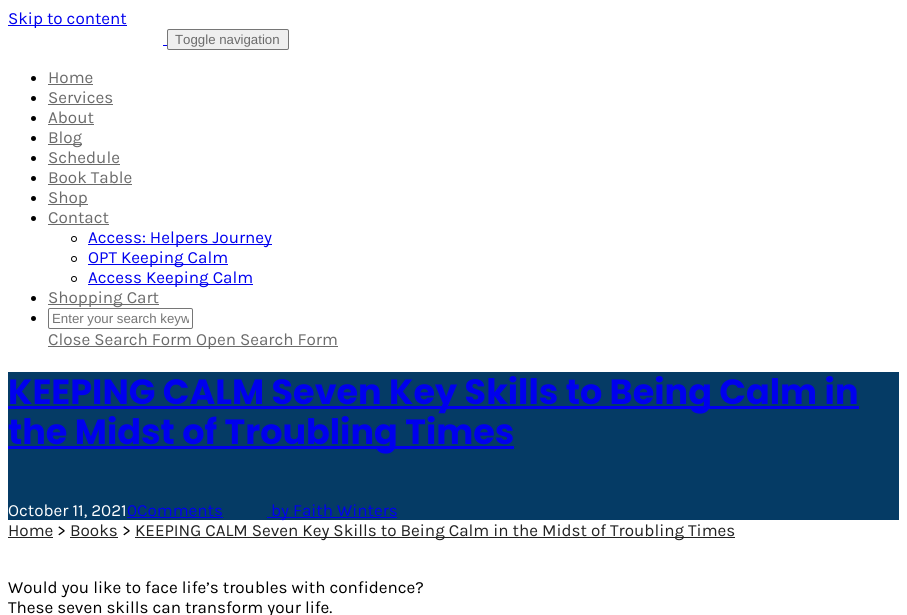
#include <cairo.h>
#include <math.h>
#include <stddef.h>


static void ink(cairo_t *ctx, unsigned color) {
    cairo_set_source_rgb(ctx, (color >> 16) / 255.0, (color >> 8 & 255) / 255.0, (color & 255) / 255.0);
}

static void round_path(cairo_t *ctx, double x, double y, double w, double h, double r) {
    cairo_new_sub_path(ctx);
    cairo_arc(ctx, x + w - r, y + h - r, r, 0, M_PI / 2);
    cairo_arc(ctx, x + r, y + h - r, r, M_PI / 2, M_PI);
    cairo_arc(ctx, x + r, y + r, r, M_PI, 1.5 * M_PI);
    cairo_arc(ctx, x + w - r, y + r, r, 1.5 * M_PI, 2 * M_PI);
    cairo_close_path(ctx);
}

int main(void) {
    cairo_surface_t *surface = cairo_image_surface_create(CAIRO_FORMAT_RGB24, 907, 615);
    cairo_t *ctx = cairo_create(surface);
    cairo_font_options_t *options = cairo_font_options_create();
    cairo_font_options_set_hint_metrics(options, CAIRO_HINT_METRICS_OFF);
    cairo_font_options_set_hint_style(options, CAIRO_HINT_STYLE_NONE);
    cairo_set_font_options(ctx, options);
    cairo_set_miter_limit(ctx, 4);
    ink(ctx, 0xFFFFFF);
    cairo_paint(ctx);
    ink(ctx, 0x0000EE);
    cairo_rectangle(ctx, 8, 25, 119, 1);
    cairo_fill(ctx);
    cairo_select_font_face(ctx, "Karla", CAIRO_FONT_SLANT_NORMAL, CAIRO_FONT_WEIGHT_NORMAL);
    cairo_set_font_size(ctx, 17);
    cairo_move_to(ctx, 8, 24);
    cairo_show_text(ctx, "Skip to content");
    cairo_rectangle(ctx, 163, 45, 4, 1);
    cairo_fill(ctx);
    ink(ctx, 0xEFEFEF);
    round_path(ctx, 167.5, 29.5, 121, 20, 1.5);
    cairo_fill_preserve(ctx);
    ink(ctx, 0x767676);
    cairo_set_line_width(ctx, 1);
    cairo_stroke(ctx);
    cairo_select_font_face(ctx, "Liberation Sans", CAIRO_FONT_SLANT_NORMAL, CAIRO_FONT_WEIGHT_NORMAL);
    cairo_set_font_size(ctx, 13.25);
    ink(ctx, 0x6B6B6B);
    cairo_move_to(ctx, 175, 44);
    cairo_show_text(ctx, "Toggle navigation");
    ink(ctx, 0x000000);
    cairo_new_path(ctx);
    cairo_arc(ctx, 33.5, 78.5, 2.5, 0, 2 * M_PI);
    cairo_fill(ctx);
    cairo_select_font_face(ctx, "Karla", CAIRO_FONT_SLANT_NORMAL, CAIRO_FONT_WEIGHT_NORMAL);
    cairo_set_font_size(ctx, 17);
    ink(ctx, 0x6B6B6B);
    cairo_move_to(ctx, 48, 83);
    cairo_show_text(ctx, "Home");
    cairo_rectangle(ctx, 48, 84, 45, 1);
    cairo_fill(ctx);
    ink(ctx, 0x000000);
    cairo_arc(ctx, 33.5, 98.5, 2.5, 0, 2 * M_PI);
    cairo_fill(ctx);
    ink(ctx, 0x6B6B6B);
    cairo_move_to(ctx, 48, 103);
    cairo_show_text(ctx, "Services");
    cairo_rectangle(ctx, 48, 104, 65, 1);
    cairo_fill(ctx);
    ink(ctx, 0x000000);
    cairo_arc(ctx, 33.5, 118.5, 2.5, 0, 2 * M_PI);
    cairo_fill(ctx);
    ink(ctx, 0x6B6B6B);
    cairo_move_to(ctx, 48, 123);
    cairo_show_text(ctx, "About");
    cairo_rectangle(ctx, 48, 124, 46, 1);
    cairo_fill(ctx);
    ink(ctx, 0x000000);
    cairo_arc(ctx, 33.5, 138.5, 2.5, 0, 2 * M_PI);
    cairo_fill(ctx);
    ink(ctx, 0x6B6B6B);
    cairo_rectangle(ctx, 48, 144, 34, 1);
    cairo_fill(ctx);
    cairo_move_to(ctx, 48, 143);
    cairo_show_text(ctx, "Blog");
    ink(ctx, 0x000000);
    cairo_new_path(ctx);
    cairo_arc(ctx, 33.5, 158.5, 2.5, 0, 2 * M_PI);
    cairo_fill(ctx);
    ink(ctx, 0x6B6B6B);
    cairo_move_to(ctx, 48, 163);
    cairo_show_text(ctx, "Schedule");
    cairo_rectangle(ctx, 48, 164, 72, 1);
    cairo_fill(ctx);
    ink(ctx, 0x000000);
    cairo_arc(ctx, 33.5, 178.5, 2.5, 0, 2 * M_PI);
    cairo_fill(ctx);
    ink(ctx, 0x6B6B6B);
    cairo_move_to(ctx, 48, 183);
    cairo_show_text(ctx, "Book Table");
    cairo_rectangle(ctx, 48, 184, 84, 1);
    cairo_fill(ctx);
    ink(ctx, 0x000000);
    cairo_arc(ctx, 33.5, 198.5, 2.5, 0, 2 * M_PI);
    cairo_fill(ctx);
    ink(ctx, 0x6B6B6B);
    cairo_rectangle(ctx, 48, 204, 40, 1);
    cairo_fill(ctx);
    cairo_move_to(ctx, 48, 203);
    cairo_show_text(ctx, "Shop");
    ink(ctx, 0x000000);
    cairo_new_path(ctx);
    cairo_arc(ctx, 33.5, 218.5, 2.5, 0, 2 * M_PI);
    cairo_fill(ctx);
    ink(ctx, 0x6B6B6B);
    cairo_move_to(ctx, 48, 223);
    cairo_show_text(ctx, "Contact");
    cairo_rectangle(ctx, 48, 224, 61, 1);
    cairo_fill(ctx);
    cairo_arc(ctx, 74, 239, 2.5, 0, 2 * M_PI);
    ink(ctx, 0x000000);
    cairo_stroke(ctx);
    ink(ctx, 0x0000EE);
    cairo_rectangle(ctx, 88, 244, 184, 1);
    cairo_fill(ctx);
    cairo_move_to(ctx, 88, 243);
    cairo_show_text(ctx, "Access: Helpers Journey");
    cairo_new_path(ctx);
    cairo_arc(ctx, 74, 259, 2.5, 0, 2 * M_PI);
    ink(ctx, 0x000000);
    cairo_stroke(ctx);
    ink(ctx, 0x0000EE);
    cairo_rectangle(ctx, 88, 264, 140, 1);
    cairo_fill(ctx);
    cairo_move_to(ctx, 88, 263);
    cairo_show_text(ctx, "OPT Keeping Calm");
    cairo_new_path(ctx);
    cairo_arc(ctx, 74, 279, 2.5, 0, 2 * M_PI);
    ink(ctx, 0x000000);
    cairo_stroke(ctx);
    ink(ctx, 0x0000EE);
    cairo_rectangle(ctx, 88, 284, 165, 1);
    cairo_fill(ctx);
    cairo_move_to(ctx, 88, 283);
    cairo_show_text(ctx, "Access Keeping Calm");
    ink(ctx, 0x000000);
    cairo_new_path(ctx);
    cairo_arc(ctx, 33.5, 298.5, 2.5, 0, 2 * M_PI);
    cairo_fill(ctx);
    ink(ctx, 0x6B6B6B);
    cairo_rectangle(ctx, 48, 304, 111, 1);
    cairo_fill(ctx);
    cairo_move_to(ctx, 48, 303);
    cairo_show_text(ctx, "Shopping Cart");
    ink(ctx, 0x000000);
    cairo_new_path(ctx);
    cairo_arc(ctx, 33.5, 318.5, 2.5, 0, 2 * M_PI);
    cairo_fill(ctx);
    round_path(ctx, 48.5, 308.5, 144, 20, 1.5);
    ink(ctx, 0x767676);
    cairo_stroke(ctx);
    cairo_save(ctx);
    cairo_rectangle(ctx, 52, 311, 137, 15);
    cairo_clip(ctx);
    cairo_select_font_face(ctx, "Liberation Sans", CAIRO_FONT_SLANT_NORMAL, CAIRO_FONT_WEIGHT_NORMAL);
    cairo_set_font_size(ctx, 13.25);
    ink(ctx, 0x757575);
    cairo_move_to(ctx, 52, 323);
    cairo_show_text(ctx, "Enter your search keyw");
    cairo_restore(ctx);
    ink(ctx, 0x6B6B6B);
    cairo_rectangle(ctx, 48, 346, 290, 1);
    cairo_fill(ctx);
    cairo_move_to(ctx, 48, 345);
    cairo_show_text(ctx, "Close Search Form Open Search Form");
    ink(ctx, 0x053B65);
    cairo_rectangle(ctx, 8, 372, 891, 148);
    cairo_fill(ctx);
    ink(ctx, 0x0000EE);
    cairo_rectangle(ctx, 8, 406, 851, 3);
    cairo_fill(ctx);
    cairo_select_font_face(ctx, "Poppins", CAIRO_FONT_SLANT_NORMAL, CAIRO_FONT_WEIGHT_BOLD);
    cairo_set_font_size(ctx, 35);
    cairo_move_to(ctx, 8, 404);
    cairo_show_text(ctx, "KEEPING CALM Seven Key Skills to Being Calm in");
    cairo_rectangle(ctx, 8, 446, 506, 3);
    cairo_fill(ctx);
    cairo_move_to(ctx, 8, 444);
    cairo_show_text(ctx, "the Midst of Troubling Times");
    cairo_select_font_face(ctx, "Karla", CAIRO_FONT_SLANT_NORMAL, CAIRO_FONT_WEIGHT_NORMAL);
    cairo_set_font_size(ctx, 17);
    ink(ctx, 0xFFFFFF);
    cairo_move_to(ctx, 8, 516);
    cairo_show_text(ctx, "October 11, 2021");
    ink(ctx, 0x0000EE);
    cairo_move_to(ctx, 127, 516);
    cairo_show_text(ctx, "0Comments");
    cairo_rectangle(ctx, 127, 517, 96, 1);
    cairo_fill(ctx);
    cairo_rectangle(ctx, 267, 517, 130, 1);
    cairo_fill(ctx);
    cairo_move_to(ctx, 271, 516);
    cairo_show_text(ctx, "by Faith Winters");
    ink(ctx, 0x222222);
    cairo_move_to(ctx, 8, 536);
    cairo_show_text(ctx, "Home");
    cairo_rectangle(ctx, 8, 537, 45, 1);
    cairo_fill(ctx);
    ink(ctx, 0x000000);
    cairo_move_to(ctx, 57, 536);
    cairo_show_text(ctx, ">");
    ink(ctx, 0x222222);
    cairo_move_to(ctx, 70, 536);
    cairo_show_text(ctx, "Books");
    cairo_rectangle(ctx, 70, 537, 48, 1);
    cairo_fill(ctx);
    ink(ctx, 0x000000);
    cairo_move_to(ctx, 122, 536);
    cairo_show_text(ctx, ">");
    ink(ctx, 0x222222);
    cairo_rectangle(ctx, 135, 537, 600, 1);
    cairo_fill(ctx);
    cairo_move_to(ctx, 135, 536);
    cairo_show_text(ctx, "KEEPING CALM Seven Key Skills to Being Calm in the Midst of Troubling Times");
    ink(ctx, 0x000000);
    cairo_move_to(ctx, 8, 593);
    cairo_show_text(ctx, "Would you like to face life’s troubles with confidence?");
    cairo_move_to(ctx, 8, 613);
    cairo_show_text(ctx, "These seven skills can transform your life.");
    cairo_surface_write_to_png(surface, "image.png");
    cairo_font_options_destroy(options);
    cairo_destroy(ctx);
    cairo_surface_destroy(surface);
    return 0;
}
